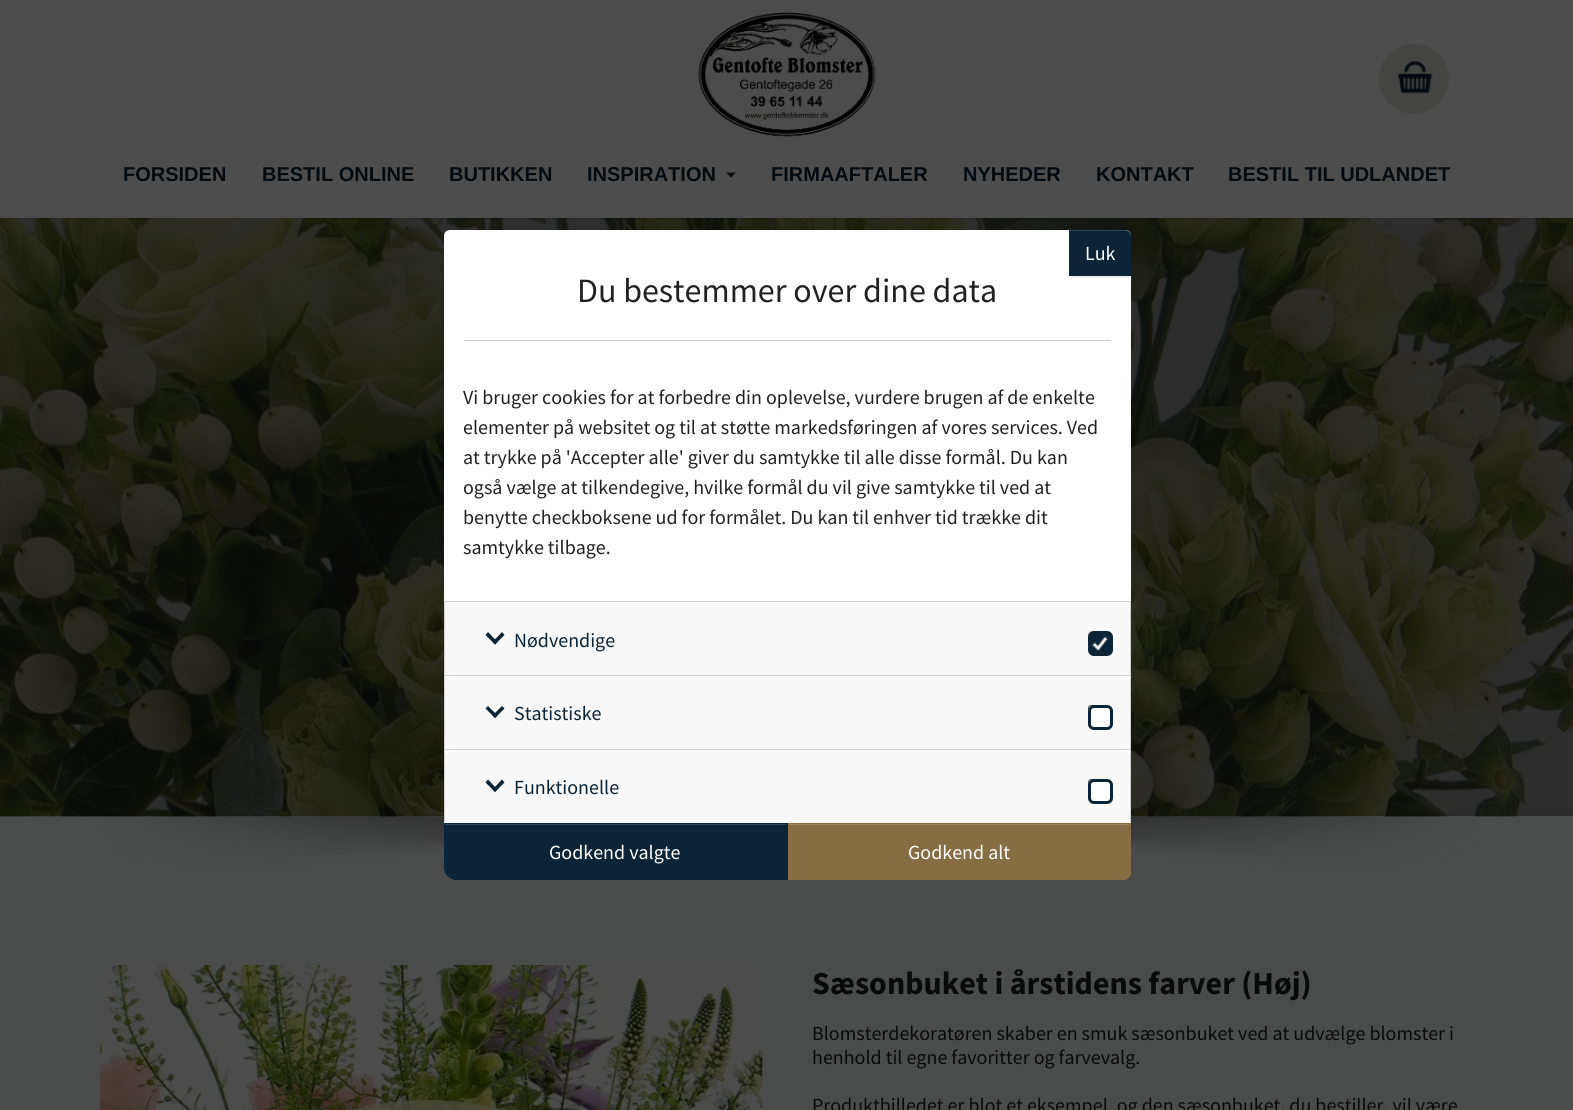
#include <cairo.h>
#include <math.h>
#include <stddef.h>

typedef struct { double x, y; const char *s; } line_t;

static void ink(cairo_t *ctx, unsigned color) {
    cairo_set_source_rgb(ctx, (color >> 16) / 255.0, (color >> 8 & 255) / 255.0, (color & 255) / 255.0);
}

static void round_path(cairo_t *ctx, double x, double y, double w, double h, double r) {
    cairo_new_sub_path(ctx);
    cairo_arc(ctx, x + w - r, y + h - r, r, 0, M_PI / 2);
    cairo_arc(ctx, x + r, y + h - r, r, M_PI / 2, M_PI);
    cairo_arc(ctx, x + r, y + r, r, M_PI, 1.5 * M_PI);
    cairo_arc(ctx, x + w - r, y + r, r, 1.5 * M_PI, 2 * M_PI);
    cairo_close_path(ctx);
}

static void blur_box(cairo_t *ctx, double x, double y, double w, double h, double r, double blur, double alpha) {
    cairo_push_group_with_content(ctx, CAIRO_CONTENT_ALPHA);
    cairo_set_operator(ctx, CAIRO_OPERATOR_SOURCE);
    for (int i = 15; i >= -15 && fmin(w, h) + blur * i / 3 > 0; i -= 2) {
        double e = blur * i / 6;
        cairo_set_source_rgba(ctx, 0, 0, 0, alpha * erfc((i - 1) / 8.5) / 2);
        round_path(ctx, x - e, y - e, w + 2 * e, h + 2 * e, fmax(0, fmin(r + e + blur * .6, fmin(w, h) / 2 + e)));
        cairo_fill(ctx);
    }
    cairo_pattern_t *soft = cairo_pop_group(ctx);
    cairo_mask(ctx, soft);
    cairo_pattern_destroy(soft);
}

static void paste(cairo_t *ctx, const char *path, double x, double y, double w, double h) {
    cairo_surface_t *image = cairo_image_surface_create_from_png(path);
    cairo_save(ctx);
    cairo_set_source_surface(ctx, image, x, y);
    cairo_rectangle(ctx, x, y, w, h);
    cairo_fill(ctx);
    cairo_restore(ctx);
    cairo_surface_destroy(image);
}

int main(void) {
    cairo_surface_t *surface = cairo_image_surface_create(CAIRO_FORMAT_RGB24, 1573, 1110);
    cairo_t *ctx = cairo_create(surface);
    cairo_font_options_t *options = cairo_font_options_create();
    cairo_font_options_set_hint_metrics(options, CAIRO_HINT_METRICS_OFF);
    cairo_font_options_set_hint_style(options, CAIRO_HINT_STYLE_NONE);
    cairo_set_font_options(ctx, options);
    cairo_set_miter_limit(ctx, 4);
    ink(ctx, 0x4A4B4B);
    cairo_paint(ctx);
    ink(ctx, 0x0F0F0F);
    cairo_rectangle(ctx, 0, 218, 1573, 598);
    cairo_fill(ctx);
    paste(ctx, "media/4.png", 99, 816, 1378, 52);
    paste(ctx, "media/3.png", 0, 218, 1573, 599);
    cairo_set_source_rgba(ctx, 0, 0, 0, 0.15);
    cairo_new_path(ctx);
    cairo_move_to(ctx, 0, 218);
    cairo_line_to(ctx, 0, 219);
    cairo_line_to(ctx, 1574, 219);
    cairo_line_to(ctx, 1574, 1);
    cairo_line_to(ctx, 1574, 218);
    cairo_close_path(ctx);
    cairo_fill(ctx);
    ink(ctx, 0x4D4D4D);
    cairo_rectangle(ctx, 0, 0, 1573, 218);
    cairo_fill(ctx);
    paste(ctx, "media/1.png", 695, 9, 181, 132);
    paste(ctx, "media/2.png", 1378, 43, 71, 71);
    cairo_select_font_face(ctx, "Liberation Sans", CAIRO_FONT_SLANT_NORMAL, CAIRO_FONT_WEIGHT_BOLD);
    cairo_set_font_size(ctx, 20);
    ink(ctx, 0x030B11);
    {
        static const line_t items[] = {
            {123, 181, "FORSIDEN"},
            {262, 181, "BESTIL ONLINE"},
            {449, 181, "BUTIKKEN"},
            {587, 181, "INSPIRATION"},
        };
        for (size_t i = 0; i < sizeof items / sizeof *items; i++) {
            cairo_move_to(ctx, items[i].x, items[i].y);
            cairo_show_text(ctx, items[i].s);
        }
    }
    ink(ctx, 0x0D0D0D);
    cairo_new_path(ctx);
    cairo_move_to(ctx, 726, 172.5);
    cairo_line_to(ctx, 736, 172.5);
    cairo_line_to(ctx, 731, 177.5);
    cairo_close_path(ctx);
    cairo_fill(ctx);
    ink(ctx, 0x030B11);
    {
        static const line_t items[] = {
            {771, 181, "FIRMAAFTALER"},
            {963, 181, "NYHEDER"},
            {1096, 181, "KONTAKT"},
            {1228, 181, "BESTIL TIL UDLANDET"},
        };
        for (size_t i = 0; i < sizeof items / sizeof *items; i++) {
            cairo_move_to(ctx, items[i].x, items[i].y);
            cairo_show_text(ctx, items[i].s);
        }
    }
    paste(ctx, "media/5.png", 100, 965, 663, 145);
    cairo_select_font_face(ctx, "Source Sans Pro", CAIRO_FONT_SLANT_NORMAL, CAIRO_FONT_WEIGHT_BOLD);
    cairo_set_font_size(ctx, 32);
    ink(ctx, 0x0A0A0A);
    cairo_move_to(ctx, 812, 994);
    cairo_show_text(ctx, "Sæsonbuket i årstidens farver (Høj)");
    cairo_select_font_face(ctx, "Source Sans Pro", CAIRO_FONT_SLANT_NORMAL, CAIRO_FONT_WEIGHT_NORMAL);
    cairo_set_font_size(ctx, 20);
    {
        static const line_t items[] = {
            {812, 1040, "Blomsterdekoratøren skaber en smuk sæsonbuket ved at udvælge blomster i"},
            {812, 1064, "henhold til egne favoritter og farvevalg."},
            {812, 1112, "Produktbilledet er blot et eksempel, og den sæsonbuket, du bestiller, vil være"},
        };
        for (size_t i = 0; i < sizeof items / sizeof *items; i++) {
            cairo_move_to(ctx, items[i].x, items[i].y);
            cairo_show_text(ctx, items[i].s);
        }
    }
    ink(ctx, 0xFFFFFF);
    cairo_new_path(ctx);
    cairo_move_to(ctx, 450, 230);
    cairo_line_to(ctx, 1125, 230);
    cairo_curve_to(ctx, 1128.5, 230, 1131, 232.5, 1131, 236);
    cairo_line_to(ctx, 1131, 601);
    cairo_line_to(ctx, 444, 601);
    cairo_line_to(ctx, 444, 236);
    cairo_curve_to(ctx, 444, 232.5, 446.5, 230, 450, 230);
    cairo_close_path(ctx);
    cairo_fill(ctx);
    cairo_save(ctx);
    cairo_rectangle(ctx, 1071, 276, 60, 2);
    cairo_clip(ctx);
    ink(ctx, 0x000000);
    blur_box(ctx, 1069, 230, 64, 48, 6, 0.5, 0.07);
    cairo_restore(ctx);
    cairo_save(ctx);
    round_path(ctx, 444, 230, 687, 650, 6);
    cairo_clip(ctx);
    ink(ctx, 0x0B2438);
    cairo_new_path(ctx);
    cairo_move_to(ctx, 1069, 229);
    cairo_line_to(ctx, 1127, 229);
    cairo_curve_to(ctx, 1130.5, 229, 1133, 231.5, 1133, 235);
    cairo_line_to(ctx, 1133, 276);
    cairo_line_to(ctx, 1069, 276);
    cairo_close_path(ctx);
    cairo_fill(ctx);
    cairo_restore(ctx);
    cairo_set_source_rgba(ctx, 1, 1, 1, 0.15);
    cairo_new_path(ctx);
    cairo_move_to(ctx, 1070, 230);
    cairo_line_to(ctx, 1070, 231);
    cairo_line_to(ctx, 1126, 231);
    cairo_curve_to(ctx, 1128, 231, 1130, 232, 1131, 234);
    cairo_curve_to(ctx, 1130, 232, 1128, 230, 1125, 230);
    cairo_close_path(ctx);
    cairo_fill(ctx);
    ink(ctx, 0xFFFFFF);
    cairo_move_to(ctx, 1085, 260);
    cairo_show_text(ctx, "Luk");
    cairo_set_font_size(ctx, 34);
    ink(ctx, 0x212121);
    cairo_move_to(ctx, 577, 302);
    cairo_show_text(ctx, "Du bestemmer over dine data");
    ink(ctx, 0xC8C8C8);
    cairo_rectangle(ctx, 464, 340, 647, 1);
    cairo_fill(ctx);
    cairo_set_font_size(ctx, 20);
    ink(ctx, 0x212121);
    {
        static const line_t items[] = {
            {463, 404, "Vi bruger cookies for at forbedre din oplevelse, vurdere brugen af de enkelte"},
            {463, 434, "elementer på websitet og til at støtte markedsføringen af vores services. Ved"},
            {463, 464, "at trykke på 'Accepter alle' giver du samtykke til alle disse formål. Du kan"},
            {463, 494, "også vælge at tilkendegive, hvilke formål du vil give samtykke til ved at"},
            {463, 524, "benytte checkboksene ud for formålet. Du kan til enhver tid trække dit"},
            {463, 554, "samtykke tilbage."},
        };
        for (size_t i = 0; i < sizeof items / sizeof *items; i++) {
            cairo_move_to(ctx, items[i].x, items[i].y);
            cairo_show_text(ctx, items[i].s);
        }
    }
    ink(ctx, 0xFFFFFF);
    cairo_rectangle(ctx, 444, 601, 687, 222);
    cairo_fill(ctx);
    ink(ctx, 0xD2D2D2);
    cairo_new_path(ctx);
    cairo_move_to(ctx, 444, 601);
    cairo_line_to(ctx, 1131, 601);
    cairo_line_to(ctx, 1130, 602);
    cairo_line_to(ctx, 445, 602);
    cairo_close_path(ctx);
    cairo_fill(ctx);
    cairo_set_source_rgba(ctx, 0, 0, 0, 0.18);
    cairo_new_path(ctx);
    cairo_move_to(ctx, 1131, 601);
    cairo_line_to(ctx, 1131, 675);
    cairo_line_to(ctx, 1130, 675);
    cairo_line_to(ctx, 1130, 602);
    cairo_close_path(ctx);
    cairo_fill(ctx);
    cairo_new_path(ctx);
    cairo_move_to(ctx, 444, 675);
    cairo_line_to(ctx, 444, 601);
    cairo_line_to(ctx, 445, 602);
    cairo_line_to(ctx, 445, 675);
    cairo_close_path(ctx);
    cairo_fill(ctx);
    ink(ctx, 0xF8F8F8);
    cairo_new_path(ctx);
    cairo_move_to(ctx, 451, 603);
    cairo_line_to(ctx, 1124, 603);
    cairo_curve_to(ctx, 1127.5, 603, 1130, 605.5, 1130, 609);
    cairo_line_to(ctx, 1130, 675);
    cairo_line_to(ctx, 445, 675);
    cairo_line_to(ctx, 445, 609);
    cairo_curve_to(ctx, 445, 605.5, 447.5, 603, 451, 603);
    cairo_close_path(ctx);
    cairo_fill(ctx);
    ink(ctx, 0x0B2438);
    cairo_new_path(ctx);
    cairo_move_to(ctx, 502, 632);
    cairo_line_to(ctx, 504.5, 635);
    cairo_line_to(ctx, 495, 644.5);
    cairo_line_to(ctx, 492.5, 642);
    cairo_close_path(ctx);
    cairo_fill(ctx);
    cairo_new_path(ctx);
    cairo_move_to(ctx, 488, 632);
    cairo_line_to(ctx, 497.5, 642);
    cairo_line_to(ctx, 495, 644.5);
    cairo_line_to(ctx, 485.5, 635);
    cairo_close_path(ctx);
    cairo_fill(ctx);
    cairo_move_to(ctx, 514, 647);
    cairo_show_text(ctx, "Nødvendige");
    ink(ctx, 0xD1D1D1);
    round_path(ctx, 1088, 631, 16, 17, 2.5);
    cairo_fill(ctx);
    ink(ctx, 0x0B2438);
    round_path(ctx, 1088, 631, 25, 25, 6);
    cairo_fill(ctx);
    paste(ctx, "media/6.png", 1092, 637, 16, 14);
    ink(ctx, 0xD2D2D2);
    cairo_new_path(ctx);
    cairo_move_to(ctx, 444, 675);
    cairo_line_to(ctx, 1131, 675);
    cairo_line_to(ctx, 1130, 676);
    cairo_line_to(ctx, 445, 676);
    cairo_close_path(ctx);
    cairo_fill(ctx);
    cairo_set_source_rgba(ctx, 0, 0, 0, 0.18);
    cairo_new_path(ctx);
    cairo_move_to(ctx, 1131, 675);
    cairo_line_to(ctx, 1131, 749);
    cairo_line_to(ctx, 1130, 749);
    cairo_line_to(ctx, 1130, 676);
    cairo_close_path(ctx);
    cairo_fill(ctx);
    cairo_new_path(ctx);
    cairo_move_to(ctx, 444, 749);
    cairo_line_to(ctx, 444, 675);
    cairo_line_to(ctx, 445, 676);
    cairo_line_to(ctx, 445, 749);
    cairo_close_path(ctx);
    cairo_fill(ctx);
    ink(ctx, 0xF8F8F8);
    cairo_new_path(ctx);
    cairo_move_to(ctx, 451, 676);
    cairo_line_to(ctx, 1124, 676);
    cairo_curve_to(ctx, 1127.5, 676, 1130, 678.5, 1130, 682);
    cairo_line_to(ctx, 1130, 749);
    cairo_line_to(ctx, 445, 749);
    cairo_line_to(ctx, 445, 682);
    cairo_curve_to(ctx, 445, 678.5, 447.5, 676, 451, 676);
    cairo_close_path(ctx);
    cairo_fill(ctx);
    ink(ctx, 0x0B2438);
    cairo_new_path(ctx);
    cairo_move_to(ctx, 502, 706);
    cairo_line_to(ctx, 504.5, 708.5);
    cairo_line_to(ctx, 495, 718);
    cairo_line_to(ctx, 492.5, 715.5);
    cairo_close_path(ctx);
    cairo_fill(ctx);
    cairo_new_path(ctx);
    cairo_move_to(ctx, 488, 706);
    cairo_line_to(ctx, 497.5, 715.5);
    cairo_line_to(ctx, 495, 718);
    cairo_line_to(ctx, 485.5, 708.5);
    cairo_close_path(ctx);
    cairo_fill(ctx);
    cairo_move_to(ctx, 514, 720);
    cairo_show_text(ctx, "Statistiske");
    ink(ctx, 0xFFFFFF);
    round_path(ctx, 1088.5, 705.5, 15, 15, 2);
    cairo_fill_preserve(ctx);
    ink(ctx, 0x767676);
    cairo_set_line_width(ctx, 1);
    cairo_stroke(ctx);
    ink(ctx, 0xFFFFFF);
    round_path(ctx, 1089.5, 706.5, 22, 22, 4.5);
    cairo_fill_preserve(ctx);
    ink(ctx, 0x0B2438);
    cairo_set_line_width(ctx, 3);
    cairo_stroke(ctx);
    ink(ctx, 0xD2D2D2);
    cairo_new_path(ctx);
    cairo_move_to(ctx, 444, 749);
    cairo_line_to(ctx, 1131, 749);
    cairo_line_to(ctx, 1130, 750);
    cairo_line_to(ctx, 445, 750);
    cairo_close_path(ctx);
    cairo_fill(ctx);
    cairo_set_source_rgba(ctx, 0, 0, 0, 0.18);
    cairo_new_path(ctx);
    cairo_move_to(ctx, 1131, 749);
    cairo_line_to(ctx, 1131, 822);
    cairo_line_to(ctx, 1130, 822);
    cairo_line_to(ctx, 1130, 750);
    cairo_close_path(ctx);
    cairo_fill(ctx);
    cairo_new_path(ctx);
    cairo_move_to(ctx, 444, 822);
    cairo_line_to(ctx, 444, 749);
    cairo_line_to(ctx, 445, 750);
    cairo_line_to(ctx, 445, 822);
    cairo_close_path(ctx);
    cairo_fill(ctx);
    ink(ctx, 0xF8F8F8);
    cairo_new_path(ctx);
    cairo_move_to(ctx, 451, 750);
    cairo_line_to(ctx, 1124, 750);
    cairo_curve_to(ctx, 1127.5, 750, 1130, 752.5, 1130, 756);
    cairo_line_to(ctx, 1130, 823);
    cairo_line_to(ctx, 445, 823);
    cairo_line_to(ctx, 445, 756);
    cairo_curve_to(ctx, 445, 752.5, 447.5, 750, 451, 750);
    cairo_close_path(ctx);
    cairo_fill(ctx);
    ink(ctx, 0x0B2438);
    cairo_new_path(ctx);
    cairo_move_to(ctx, 502, 779.5);
    cairo_line_to(ctx, 504.5, 782.5);
    cairo_line_to(ctx, 495, 792);
    cairo_line_to(ctx, 492.5, 789.5);
    cairo_close_path(ctx);
    cairo_fill(ctx);
    cairo_new_path(ctx);
    cairo_move_to(ctx, 488, 779.5);
    cairo_line_to(ctx, 497.5, 789.5);
    cairo_line_to(ctx, 495, 792);
    cairo_line_to(ctx, 485.5, 782.5);
    cairo_close_path(ctx);
    cairo_fill(ctx);
    cairo_move_to(ctx, 514, 794);
    cairo_show_text(ctx, "Funktionelle");
    ink(ctx, 0xFFFFFF);
    round_path(ctx, 1088.5, 779.5, 15, 15, 2);
    cairo_fill_preserve(ctx);
    ink(ctx, 0x767676);
    cairo_set_line_width(ctx, 1);
    cairo_stroke(ctx);
    ink(ctx, 0xFFFFFF);
    round_path(ctx, 1089.5, 780.5, 22, 22, 4.5);
    cairo_fill_preserve(ctx);
    ink(ctx, 0x0B2438);
    cairo_set_line_width(ctx, 3);
    cairo_stroke(ctx);
    cairo_new_path(ctx);
    cairo_move_to(ctx, 444, 823);
    cairo_line_to(ctx, 788, 823);
    cairo_line_to(ctx, 788, 880);
    cairo_line_to(ctx, 457, 880);
    cairo_curve_to(ctx, 450, 880, 444, 874, 444, 867);
    cairo_close_path(ctx);
    cairo_fill(ctx);
    ink(ctx, 0x304556);
    cairo_rectangle(ctx, 445, 824, 341, 1);
    cairo_fill(ctx);
    cairo_new_path(ctx);
    cairo_move_to(ctx, 444.5, 823.5);
    cairo_line_to(ctx, 787.5, 823.5);
    cairo_line_to(ctx, 787.5, 879.5);
    cairo_line_to(ctx, 457, 879.5);
    cairo_curve_to(ctx, 450, 879.5, 444.5, 874, 444.5, 867);
    cairo_close_path(ctx);
    ink(ctx, 0x0B2438);
    cairo_set_line_width(ctx, 1);
    cairo_stroke(ctx);
    ink(ctx, 0xFFFFFF);
    cairo_move_to(ctx, 549, 859);
    cairo_show_text(ctx, "Godkend valgte");
    ink(ctx, 0x876D44);
    cairo_new_path(ctx);
    cairo_move_to(ctx, 788, 823);
    cairo_line_to(ctx, 1131, 823);
    cairo_line_to(ctx, 1131, 872);
    cairo_curve_to(ctx, 1131, 876.5, 1127.5, 880, 1123, 880);
    cairo_line_to(ctx, 788, 880);
    cairo_close_path(ctx);
    cairo_fill(ctx);
    ink(ctx, 0x998360);
    cairo_rectangle(ctx, 789, 824, 341, 1);
    cairo_fill(ctx);
    cairo_new_path(ctx);
    cairo_move_to(ctx, 788.5, 823.5);
    cairo_line_to(ctx, 1130.5, 823.5);
    cairo_line_to(ctx, 1130.5, 872);
    cairo_curve_to(ctx, 1130.5, 876, 1127, 879.5, 1123, 879.5);
    cairo_line_to(ctx, 788.5, 879.5);
    cairo_close_path(ctx);
    ink(ctx, 0x876D44);
    cairo_stroke(ctx);
    ink(ctx, 0xFFFFFF);
    cairo_move_to(ctx, 908, 859);
    cairo_show_text(ctx, "Godkend alt");
    cairo_surface_write_to_png(surface, "image.png");
    cairo_font_options_destroy(options);
    cairo_destroy(ctx);
    cairo_surface_destroy(surface);
    return 0;
}
